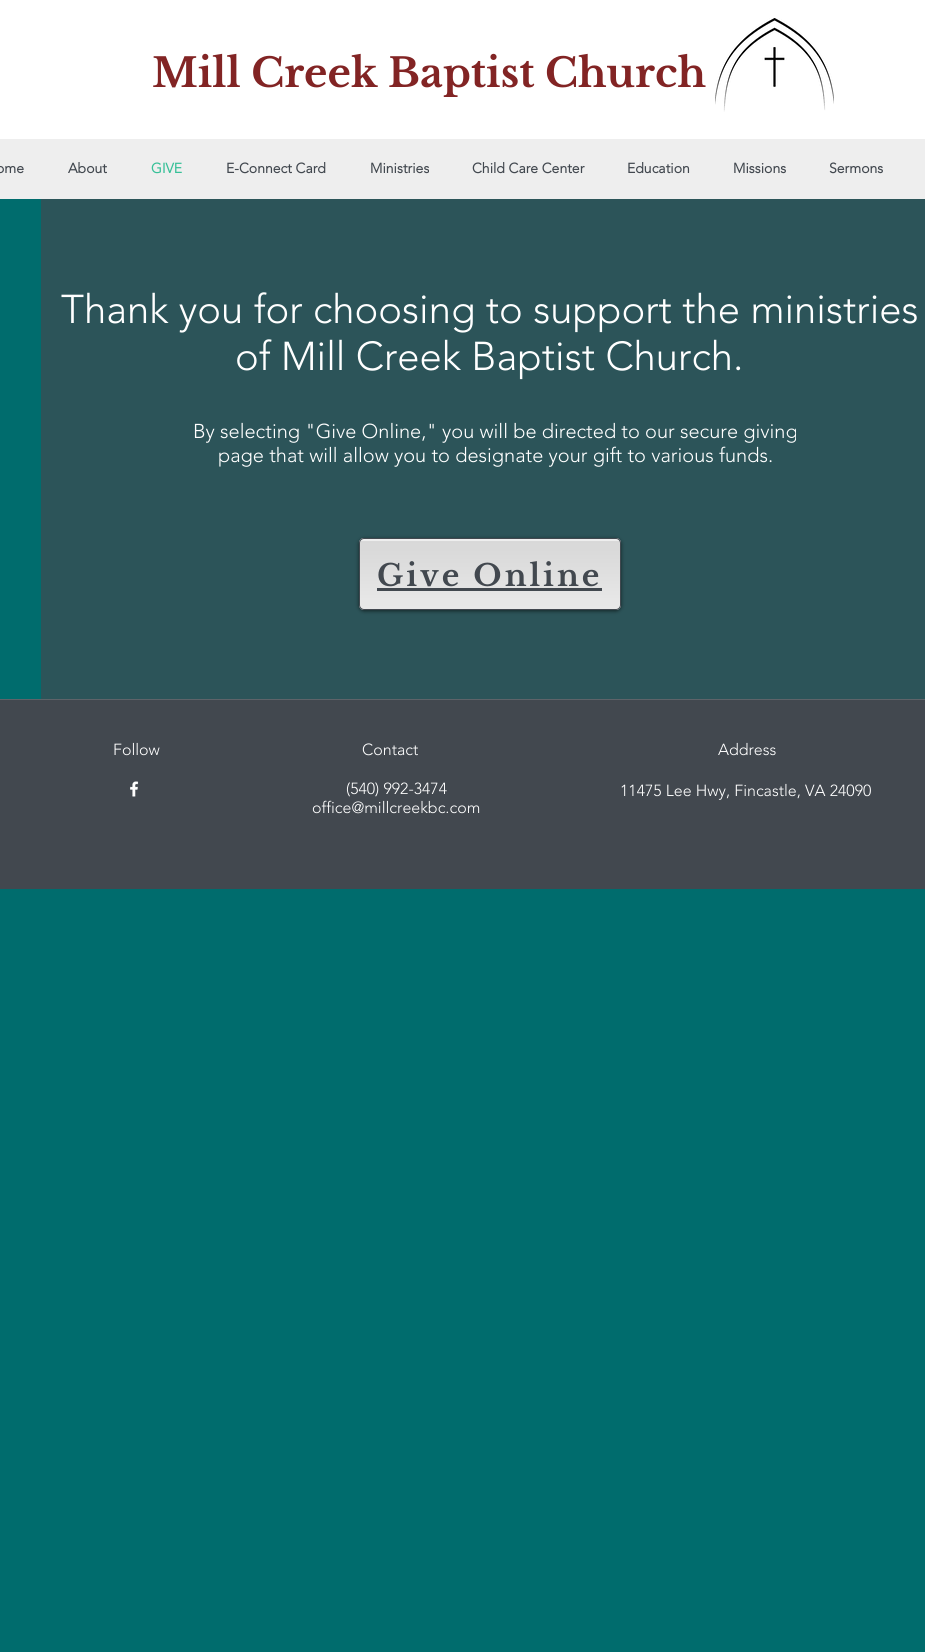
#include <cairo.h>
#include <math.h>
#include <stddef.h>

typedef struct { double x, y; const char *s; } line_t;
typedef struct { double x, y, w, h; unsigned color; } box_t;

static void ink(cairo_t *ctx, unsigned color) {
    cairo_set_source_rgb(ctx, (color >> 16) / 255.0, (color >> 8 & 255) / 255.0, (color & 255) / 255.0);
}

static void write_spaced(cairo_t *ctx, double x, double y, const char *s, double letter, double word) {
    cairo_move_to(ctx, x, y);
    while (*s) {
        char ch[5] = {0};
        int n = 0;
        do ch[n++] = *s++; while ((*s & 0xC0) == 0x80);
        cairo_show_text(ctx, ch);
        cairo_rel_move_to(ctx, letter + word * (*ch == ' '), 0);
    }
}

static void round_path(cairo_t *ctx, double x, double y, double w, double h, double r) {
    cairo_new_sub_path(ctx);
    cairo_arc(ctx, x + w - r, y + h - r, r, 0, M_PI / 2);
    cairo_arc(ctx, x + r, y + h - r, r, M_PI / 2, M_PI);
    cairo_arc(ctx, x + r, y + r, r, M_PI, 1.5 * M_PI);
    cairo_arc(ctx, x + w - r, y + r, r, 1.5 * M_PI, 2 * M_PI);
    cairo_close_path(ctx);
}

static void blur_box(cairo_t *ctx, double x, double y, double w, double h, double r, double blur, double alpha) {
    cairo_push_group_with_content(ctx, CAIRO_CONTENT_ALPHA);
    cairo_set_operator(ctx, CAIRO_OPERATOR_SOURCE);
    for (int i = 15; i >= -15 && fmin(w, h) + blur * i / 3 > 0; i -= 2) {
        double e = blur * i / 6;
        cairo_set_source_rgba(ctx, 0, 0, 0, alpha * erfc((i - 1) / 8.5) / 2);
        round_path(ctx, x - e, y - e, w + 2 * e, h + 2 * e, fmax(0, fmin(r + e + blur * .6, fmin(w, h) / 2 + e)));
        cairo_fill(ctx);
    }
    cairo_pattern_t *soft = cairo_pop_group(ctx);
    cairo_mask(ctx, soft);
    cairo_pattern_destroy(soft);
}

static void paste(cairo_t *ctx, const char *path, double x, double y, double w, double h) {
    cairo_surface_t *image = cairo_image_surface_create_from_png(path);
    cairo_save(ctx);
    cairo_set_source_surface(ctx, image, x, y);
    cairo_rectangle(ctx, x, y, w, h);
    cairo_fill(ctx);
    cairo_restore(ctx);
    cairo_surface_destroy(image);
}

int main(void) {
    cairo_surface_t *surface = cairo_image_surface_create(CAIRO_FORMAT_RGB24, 925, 1652);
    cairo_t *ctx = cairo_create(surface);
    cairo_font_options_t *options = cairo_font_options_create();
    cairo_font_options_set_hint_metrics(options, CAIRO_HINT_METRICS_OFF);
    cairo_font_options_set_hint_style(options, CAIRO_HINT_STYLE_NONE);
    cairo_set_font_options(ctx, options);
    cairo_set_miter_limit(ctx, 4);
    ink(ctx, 0x006C6D);
    cairo_paint(ctx);
    ink(ctx, 0xFFFFFF);
    cairo_rectangle(ctx, 0, 0, 925, 139);
    cairo_fill(ctx);
    cairo_select_font_face(ctx, "Libre Baskerville", CAIRO_FONT_SLANT_NORMAL, CAIRO_FONT_WEIGHT_BOLD);
    cairo_set_font_size(ctx, 40);
    ink(ctx, 0x822424);
    cairo_move_to(ctx, 152, 87);
    cairo_show_text(ctx, "Mill Creek Baptist Church");
    paste(ctx, "media/1.png", 715, 18, 119, 94);
    ink(ctx, 0xEEEEEE);
    cairo_rectangle(ctx, 0, 139, 925, 60);
    cairo_fill(ctx);
    cairo_select_font_face(ctx, "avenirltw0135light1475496", CAIRO_FONT_SLANT_NORMAL, CAIRO_FONT_WEIGHT_BOLD);
    cairo_set_font_size(ctx, 14);
    ink(ctx, 0x42484F);
    cairo_move_to(ctx, -4, 173);
    cairo_show_text(ctx, "ome");
    cairo_move_to(ctx, 68, 173);
    cairo_show_text(ctx, "About");
    ink(ctx, 0x38C098);
    cairo_move_to(ctx, 151, 173);
    cairo_show_text(ctx, "GIVE");
    ink(ctx, 0x42484F);
    {
        static const line_t items[] = {
            {226, 173, "E-Connect Card"},
            {370, 173, "Ministries"},
            {472, 173, "Child Care Center"},
            {627, 173, "Education"},
            {733, 173, "Missions"},
            {829, 173, "Sermons"},
        };
        for (size_t i = 0; i < sizeof items / sizeof *items; i++) {
            cairo_move_to(ctx, items[i].x, items[i].y);
            cairo_show_text(ctx, items[i].s);
        }
    }
    ink(ctx, 0x2C5459);
    cairo_rectangle(ctx, 41, 199, 884, 500);
    cairo_fill(ctx);
    cairo_select_font_face(ctx, "avenirltw0135light1475496 Light", CAIRO_FONT_SLANT_NORMAL, CAIRO_FONT_WEIGHT_NORMAL);
    cairo_set_font_size(ctx, 40);
    ink(ctx, 0xFFFFFF);
    cairo_move_to(ctx, 61, 323);
    cairo_show_text(ctx, "Thank you for choosing to support the ministries");
    cairo_move_to(ctx, 235, 370);
    cairo_show_text(ctx, "of Mill Creek Baptist Church.");
    cairo_set_font_size(ctx, 20);
    cairo_move_to(ctx, 193, 438);
    cairo_show_text(ctx, "By selecting \"Give Online,\" you will be directed to our secure giving");
    cairo_move_to(ctx, 218, 462);
    cairo_show_text(ctx, "page that will allow you to designate your gift to various funds.");
    ink(ctx, 0x000000);
    blur_box(ctx, 359, 539, 262, 72, 5, 2, 0.6);
    ink(ctx, 0xEEEEEE);
    round_path(ctx, 359, 538, 262, 72, 5);
    cairo_fill(ctx);
    paste(ctx, "media/2.png", 359, 541, 262, 68);
    round_path(ctx, 359.5, 538.5, 261, 71, 4.5);
    ink(ctx, 0x42484F);
    cairo_set_line_width(ctx, 1);
    cairo_stroke(ctx);
    cairo_select_font_face(ctx, "Libre Baskerville", CAIRO_FONT_SLANT_NORMAL, CAIRO_FONT_WEIGHT_BOLD);
    cairo_set_font_size(ctx, 30);
    write_spaced(ctx, 377, 586, "Give Online", 3, 0);
    {
        static const box_t items[] = {
            {377, 588, 225, 3, 0x42484F},
            {0, 700, 925, 189, 0x42484F},
            {0, 699, 925, 1, 0x5E6369},
        };
        for (size_t i = 0; i < sizeof items / sizeof *items; i++) {
            ink(ctx, items[i].color);
            cairo_rectangle(ctx, items[i].x, items[i].y, items[i].w, items[i].h);
            cairo_fill(ctx);
        }
    }
    cairo_select_font_face(ctx, "avenirltw0135light1475496 Light", CAIRO_FONT_SLANT_NORMAL, CAIRO_FONT_WEIGHT_NORMAL);
    cairo_set_font_size(ctx, 16);
    ink(ctx, 0xFFFFFF);
    {
        static const line_t items[] = {
            {113, 755, "Follow"},
            {362, 755, "Contact"},
            {718, 755, "Address"},
        };
        for (size_t i = 0; i < sizeof items / sizeof *items; i++) {
            cairo_move_to(ctx, items[i].x, items[i].y);
            cairo_show_text(ctx, items[i].s);
        }
    }
    paste(ctx, "media/3.png", 130, 781, 9, 16);
    {
        static const line_t items[] = {
            {346, 794, "(540) 992-3474"},
            {312, 813, "office@millcreekbc.com"},
            {620, 796, "11475 Lee Hwy, Fincastle, VA 24090"},
        };
        for (size_t i = 0; i < sizeof items / sizeof *items; i++) {
            cairo_move_to(ctx, items[i].x, items[i].y);
            cairo_show_text(ctx, items[i].s);
        }
    }
    cairo_surface_write_to_png(surface, "image.png");
    cairo_font_options_destroy(options);
    cairo_destroy(ctx);
    cairo_surface_destroy(surface);
    return 0;
}
